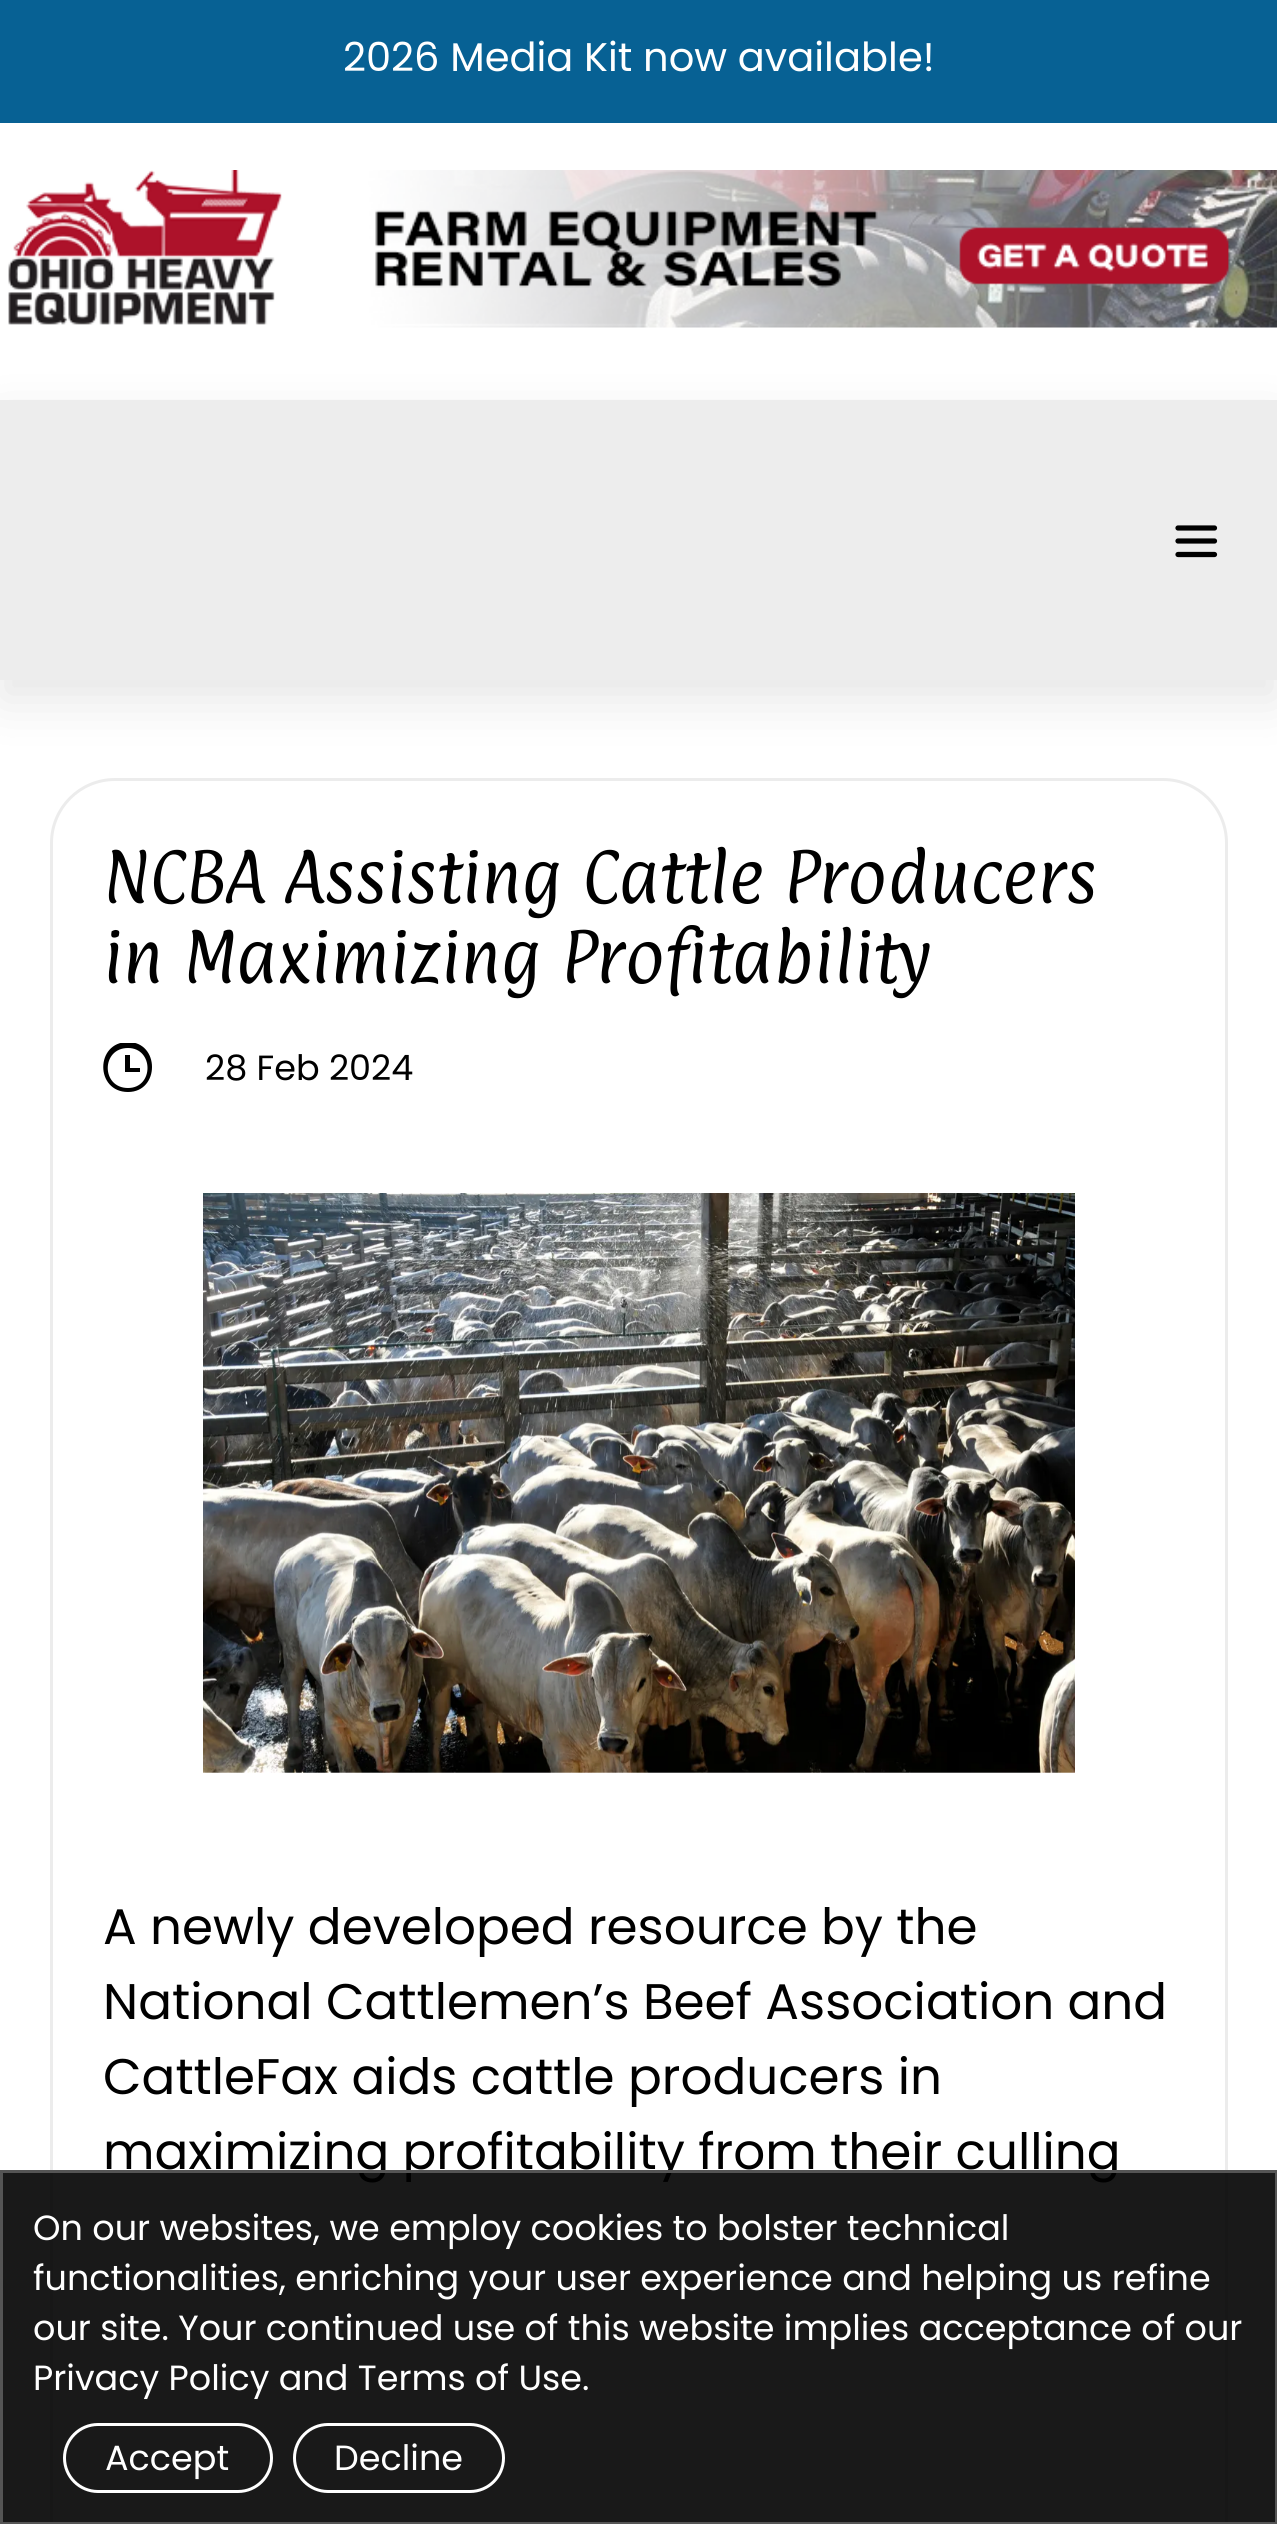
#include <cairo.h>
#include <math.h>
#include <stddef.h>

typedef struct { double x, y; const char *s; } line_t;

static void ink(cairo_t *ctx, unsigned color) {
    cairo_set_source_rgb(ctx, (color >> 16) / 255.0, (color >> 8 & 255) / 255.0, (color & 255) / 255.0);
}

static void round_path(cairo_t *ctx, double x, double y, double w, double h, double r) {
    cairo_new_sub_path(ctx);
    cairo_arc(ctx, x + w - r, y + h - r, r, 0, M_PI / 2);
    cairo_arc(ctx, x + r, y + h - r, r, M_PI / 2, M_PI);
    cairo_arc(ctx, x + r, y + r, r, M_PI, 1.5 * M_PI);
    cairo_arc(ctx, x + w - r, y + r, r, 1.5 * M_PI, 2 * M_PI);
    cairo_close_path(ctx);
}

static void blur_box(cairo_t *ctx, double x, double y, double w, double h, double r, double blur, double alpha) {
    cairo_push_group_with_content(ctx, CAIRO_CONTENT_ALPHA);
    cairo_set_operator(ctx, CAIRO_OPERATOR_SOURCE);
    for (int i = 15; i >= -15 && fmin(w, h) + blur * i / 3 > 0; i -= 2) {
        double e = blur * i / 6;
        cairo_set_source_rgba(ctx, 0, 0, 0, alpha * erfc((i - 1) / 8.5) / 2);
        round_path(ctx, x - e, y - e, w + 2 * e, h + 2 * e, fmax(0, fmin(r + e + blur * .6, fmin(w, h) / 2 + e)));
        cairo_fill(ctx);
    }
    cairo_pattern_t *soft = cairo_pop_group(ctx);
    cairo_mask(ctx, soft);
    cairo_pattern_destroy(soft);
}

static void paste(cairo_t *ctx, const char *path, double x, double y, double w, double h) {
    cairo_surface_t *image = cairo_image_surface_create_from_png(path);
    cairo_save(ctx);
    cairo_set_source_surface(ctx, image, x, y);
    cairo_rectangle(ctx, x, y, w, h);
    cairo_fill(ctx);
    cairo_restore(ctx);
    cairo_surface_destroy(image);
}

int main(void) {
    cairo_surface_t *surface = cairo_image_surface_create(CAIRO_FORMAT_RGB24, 1277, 2524);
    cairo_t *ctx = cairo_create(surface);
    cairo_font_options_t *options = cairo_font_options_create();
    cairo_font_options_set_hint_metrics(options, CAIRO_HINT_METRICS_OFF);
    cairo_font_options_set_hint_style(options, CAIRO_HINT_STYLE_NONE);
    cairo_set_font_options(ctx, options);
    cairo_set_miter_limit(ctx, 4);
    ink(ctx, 0xFFFFFF);
    cairo_paint(ctx);
    ink(ctx, 0x076194);
    cairo_rectangle(ctx, 0, 0, 1277, 123);
    cairo_fill(ctx);
    cairo_select_font_face(ctx, "Poppins", CAIRO_FONT_SLANT_NORMAL, CAIRO_FONT_WEIGHT_NORMAL);
    cairo_set_font_size(ctx, 40);
    ink(ctx, 0xFFFFFF);
    cairo_move_to(ctx, 343, 71);
    cairo_show_text(ctx, "2026 Media Kit now available!");
    paste(ctx, "media/1.png", 8, 170, 1269, 158);
    ink(ctx, 0x000000);
    blur_box(ctx, 0, 420, 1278, 280, 0, 25, 0.1);
    ink(ctx, 0xEDEDED);
    cairo_rectangle(ctx, 0, 400, 1277, 280);
    cairo_fill(ctx);
    cairo_new_path(ctx);
    cairo_move_to(ctx, 1178, 554.5);
    cairo_line_to(ctx, 1214.5, 554.5);
    cairo_move_to(ctx, 1178, 541);
    cairo_line_to(ctx, 1214.5, 541);
    cairo_move_to(ctx, 1178, 528);
    cairo_line_to(ctx, 1214.5, 528);
    ink(ctx, 0x000000);
    cairo_set_line_width(ctx, 5.2);
    cairo_set_line_cap(ctx, CAIRO_LINE_CAP_ROUND);
    cairo_set_line_join(ctx, CAIRO_LINE_JOIN_ROUND);
    cairo_stroke(ctx);
    round_path(ctx, 51.5, 779.5, 1175, 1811, 63.5);
    ink(ctx, 0xECECEC);
    cairo_set_line_width(ctx, 3);
    cairo_set_line_cap(ctx, CAIRO_LINE_CAP_BUTT);
    cairo_set_line_join(ctx, CAIRO_LINE_JOIN_MITER);
    cairo_stroke(ctx);
    cairo_select_font_face(ctx, "Paprika", CAIRO_FONT_SLANT_NORMAL, CAIRO_FONT_WEIGHT_NORMAL);
    cairo_set_font_size(ctx, 60);
    ink(ctx, 0x000000);
    cairo_move_to(ctx, 103, 903);
    cairo_show_text(ctx, "NCBA Assisting Cattle Producers");
    cairo_move_to(ctx, 103, 983);
    cairo_show_text(ctx, "in Maximizing Profitability");
    cairo_save(ctx);
    cairo_rectangle(ctx, 103, 1043, 50, 50);
    cairo_clip(ctx);
    cairo_new_path(ctx);
    cairo_move_to(ctx, 128, 1092);
    cairo_curve_to(ctx, 95, 1092, 95, 1042, 128, 1042);
    cairo_curve_to(ctx, 160, 1042, 160, 1092, 128, 1092);
    cairo_close_path(ctx);
    cairo_move_to(ctx, 128, 1088);
    cairo_curve_to(ctx, 154, 1088, 154, 1048, 128, 1048);
    cairo_curve_to(ctx, 101, 1048, 101, 1088, 128, 1088);
    cairo_close_path(ctx);
    cairo_move_to(ctx, 130, 1068);
    cairo_line_to(ctx, 140, 1068);
    cairo_line_to(ctx, 140, 1072);
    cairo_line_to(ctx, 125, 1072);
    cairo_line_to(ctx, 125, 1055);
    cairo_line_to(ctx, 130, 1055);
    cairo_close_path(ctx);
    cairo_fill(ctx);
    cairo_restore(ctx);
    cairo_select_font_face(ctx, "Poppins", CAIRO_FONT_SLANT_NORMAL, CAIRO_FONT_WEIGHT_NORMAL);
    cairo_set_font_size(ctx, 35);
    cairo_move_to(ctx, 205, 1080);
    cairo_show_text(ctx, "28 Feb 2024");
    paste(ctx, "media/2.png", 203, 1193, 872, 580);
    cairo_set_font_size(ctx, 50);
    {
        static const line_t items[] = {
            {103, 1944, "A newly developed resource by the"},
            {103, 2019, "National Cattlemen’s Beef Association and"},
            {103, 2094, "CattleFax aids cattle producers in"},
            {103, 2169, "maximizing profitability from their culling"},
        };
        for (size_t i = 0; i < sizeof items / sizeof *items; i++) {
            cairo_move_to(ctx, items[i].x, items[i].y);
            cairo_show_text(ctx, items[i].s);
        }
    }
    cairo_set_source_rgba(ctx, 0, 0, 0, 0.9);
    cairo_rectangle(ctx, 1.5, 2171.5, 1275, 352);
    cairo_fill_preserve(ctx);
    ink(ctx, 0x555555);
    cairo_stroke(ctx);
    cairo_set_font_size(ctx, 35);
    ink(ctx, 0xFFFFFF);
    {
        static const line_t items[] = {
            {33, 2240, "On our websites, we employ cookies to bolster technical"},
            {33, 2290, "functionalities, enriching your user experience and helping us refine"},
            {33, 2340, "our site. Your continued use of this website implies acceptance of our"},
            {33, 2390, "Privacy Policy and Terms of Use."},
        };
        for (size_t i = 0; i < sizeof items / sizeof *items; i++) {
            cairo_move_to(ctx, items[i].x, items[i].y);
            cairo_show_text(ctx, items[i].s);
        }
    }
    round_path(ctx, 64.5, 2424.5, 207, 67, 33.5);
    cairo_stroke(ctx);
    cairo_move_to(ctx, 105, 2470);
    cairo_show_text(ctx, "Accept");
    round_path(ctx, 294.5, 2424.5, 209, 67, 33.5);
    cairo_stroke(ctx);
    cairo_move_to(ctx, 334, 2470);
    cairo_show_text(ctx, "Decline");
    cairo_surface_write_to_png(surface, "image.png");
    cairo_font_options_destroy(options);
    cairo_destroy(ctx);
    cairo_surface_destroy(surface);
    return 0;
}
